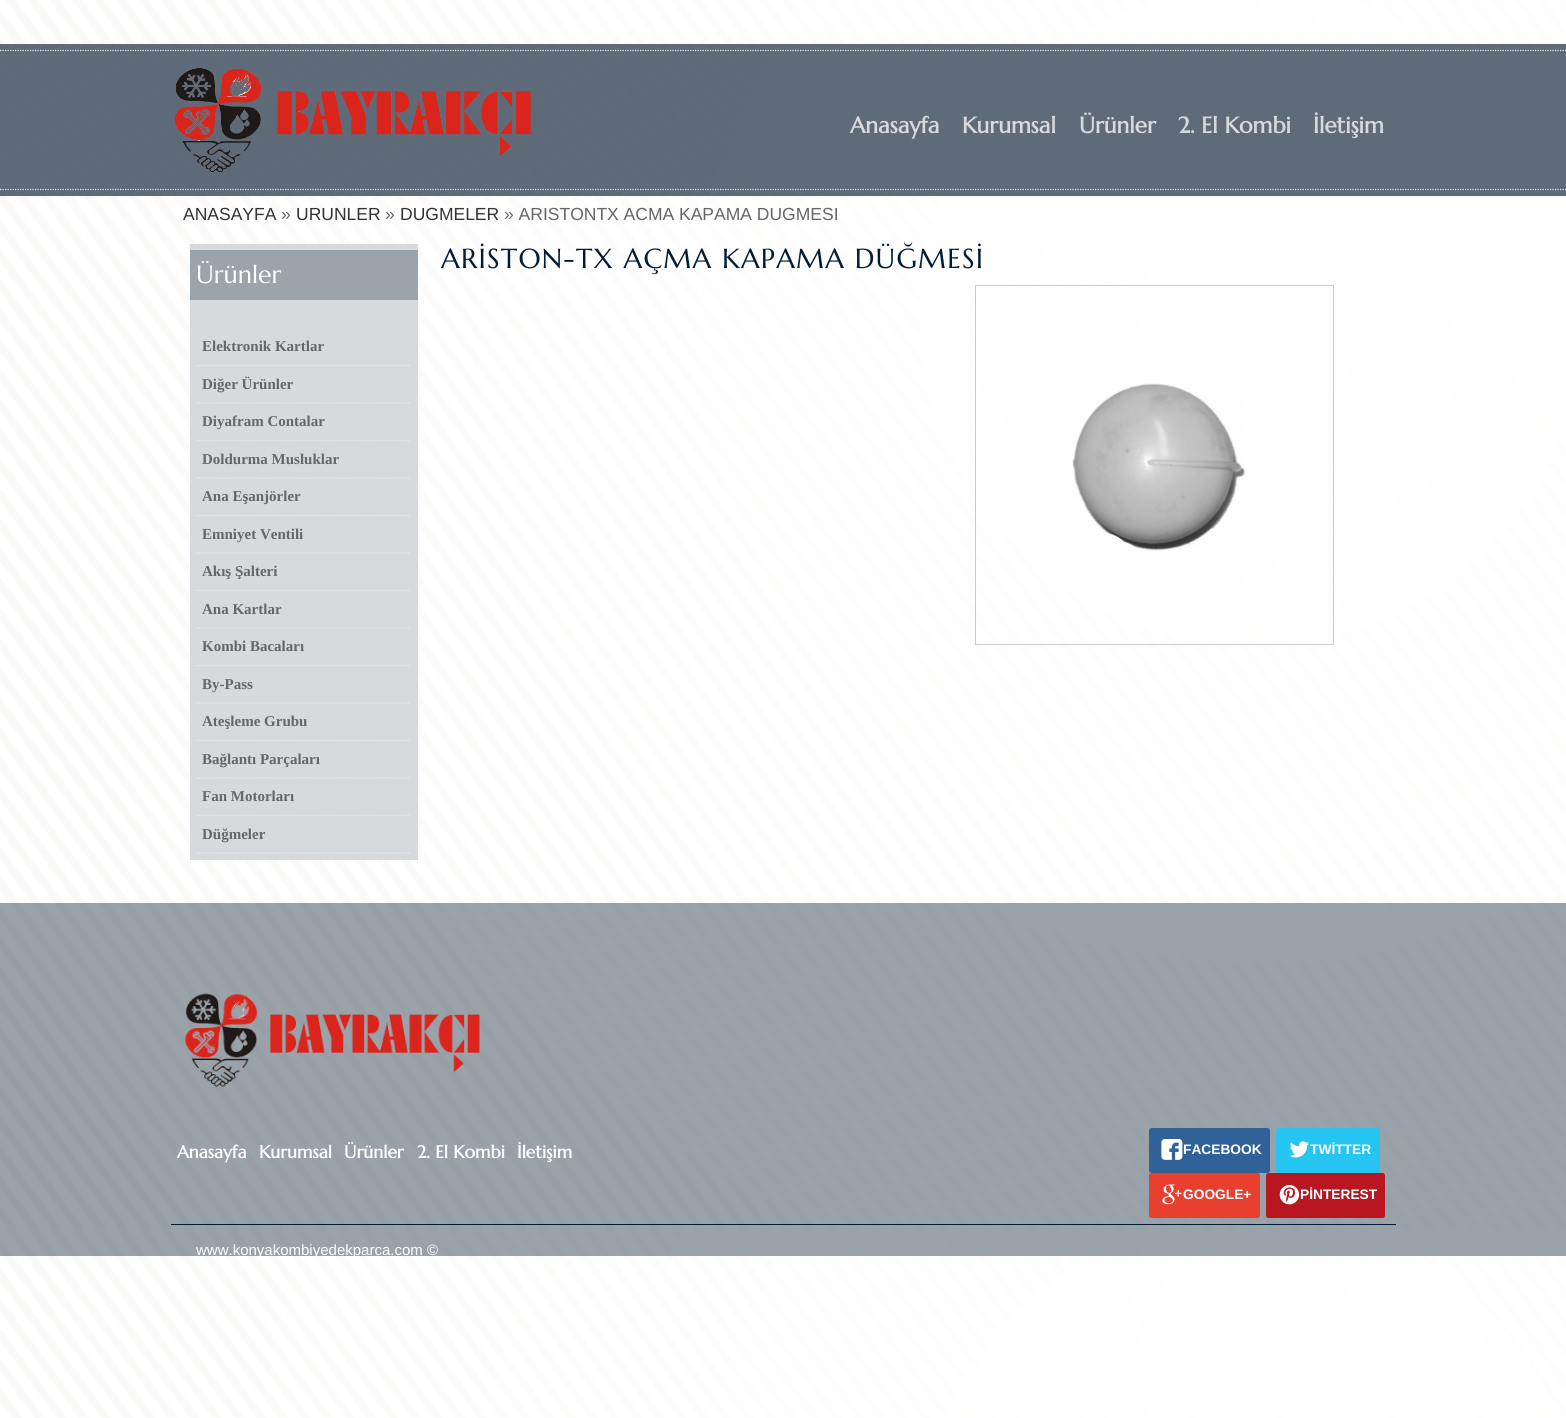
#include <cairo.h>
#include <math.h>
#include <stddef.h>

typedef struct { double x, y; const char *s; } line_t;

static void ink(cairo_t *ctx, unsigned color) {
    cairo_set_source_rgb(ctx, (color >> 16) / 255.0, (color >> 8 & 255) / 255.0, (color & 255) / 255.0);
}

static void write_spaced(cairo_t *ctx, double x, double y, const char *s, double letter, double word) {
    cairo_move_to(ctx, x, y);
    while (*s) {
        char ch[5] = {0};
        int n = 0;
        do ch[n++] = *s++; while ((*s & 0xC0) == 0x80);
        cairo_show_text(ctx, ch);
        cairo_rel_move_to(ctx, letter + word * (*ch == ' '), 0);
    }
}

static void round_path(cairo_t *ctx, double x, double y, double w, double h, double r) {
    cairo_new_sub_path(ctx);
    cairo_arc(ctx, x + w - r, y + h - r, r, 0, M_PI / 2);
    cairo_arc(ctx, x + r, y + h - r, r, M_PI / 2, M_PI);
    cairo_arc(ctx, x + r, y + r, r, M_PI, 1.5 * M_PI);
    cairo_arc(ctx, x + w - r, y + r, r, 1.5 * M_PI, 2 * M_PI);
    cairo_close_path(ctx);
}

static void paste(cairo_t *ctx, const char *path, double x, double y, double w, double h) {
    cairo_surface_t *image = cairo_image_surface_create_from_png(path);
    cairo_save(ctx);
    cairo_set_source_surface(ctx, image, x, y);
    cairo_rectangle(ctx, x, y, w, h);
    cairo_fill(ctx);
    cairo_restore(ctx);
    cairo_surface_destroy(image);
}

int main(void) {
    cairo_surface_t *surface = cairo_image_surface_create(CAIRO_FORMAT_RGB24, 1566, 1418);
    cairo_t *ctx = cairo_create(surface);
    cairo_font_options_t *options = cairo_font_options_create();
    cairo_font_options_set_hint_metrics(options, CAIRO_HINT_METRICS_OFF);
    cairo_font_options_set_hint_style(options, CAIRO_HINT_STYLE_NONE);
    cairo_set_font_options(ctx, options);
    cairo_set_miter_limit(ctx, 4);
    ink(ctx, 0xFFFFFF);
    cairo_paint(ctx);
    paste(ctx, "media/1.png", 0, 0, 1566, 1418);
    cairo_set_source_rgba(ctx, 0.216, 0.278, 0.341, 0.8);
    cairo_rectangle(ctx, 0, 44, 1566, 152);
    cairo_fill(ctx);
    cairo_new_path(ctx);
    cairo_move_to(ctx, 0, 50.5);
    cairo_line_to(ctx, 1566, 50.5);
    ink(ctx, 0xEAEAEA);
    cairo_set_line_width(ctx, 1.2);
    cairo_set_dash(ctx, (double[]){1.25, 1.25}, 2, 0);
    cairo_stroke(ctx);
    cairo_new_path(ctx);
    cairo_move_to(ctx, 0, 189.5);
    cairo_line_to(ctx, 1566, 189.5);
    cairo_stroke(ctx);
    paste(ctx, "media/2.png", 174, 68, 357, 105);
    cairo_select_font_face(ctx, "Marcellus", CAIRO_FONT_SLANT_NORMAL, CAIRO_FONT_WEIGHT_BOLD);
    cairo_set_font_size(ctx, 22.5);
    ink(ctx, 0xD7DADD);
    {
        static const line_t items[] = {
            {850, 133, "Anasayfa"},
            {962, 133, "Kurumsal"},
            {1079, 133, "Ürünler"},
            {1178, 133, "2. El Kombi"},
            {1313, 133, "İletişim"},
        };
        for (size_t i = 0; i < sizeof items / sizeof *items; i++) {
            cairo_move_to(ctx, items[i].x, items[i].y);
            cairo_show_text(ctx, items[i].s);
        }
    }
    cairo_select_font_face(ctx, "Liberation Sans", CAIRO_FONT_SLANT_NORMAL, CAIRO_FONT_WEIGHT_NORMAL);
    cairo_set_font_size(ctx, 17.5);
    ink(ctx, 0x333333);
    cairo_move_to(ctx, 183, 220);
    cairo_show_text(ctx, "ANASAYFA");
    ink(ctx, 0x666666);
    cairo_move_to(ctx, 281, 220);
    cairo_show_text(ctx, "»");
    ink(ctx, 0x333333);
    cairo_move_to(ctx, 296, 220);
    cairo_show_text(ctx, "URUNLER");
    ink(ctx, 0x666666);
    cairo_move_to(ctx, 385, 220);
    cairo_show_text(ctx, "»");
    ink(ctx, 0x333333);
    cairo_move_to(ctx, 400, 220);
    cairo_show_text(ctx, "DUGMELER");
    ink(ctx, 0x666666);
    cairo_move_to(ctx, 504, 220);
    cairo_show_text(ctx, "» ARISTONTX ACMA KAPAMA DUGMESI");
    ink(ctx, 0xD7DADD);
    cairo_rectangle(ctx, 190, 244, 228, 616);
    cairo_fill(ctx);
    ink(ctx, 0x9BA3AB);
    cairo_rectangle(ctx, 190, 250, 228, 50);
    cairo_fill(ctx);
    cairo_select_font_face(ctx, "Marcellus", CAIRO_FONT_SLANT_NORMAL, CAIRO_FONT_WEIGHT_NORMAL);
    cairo_set_font_size(ctx, 25);
    ink(ctx, 0xFFFFFF);
    cairo_move_to(ctx, 196, 283);
    cairo_show_text(ctx, "Ürünler");
    cairo_new_path(ctx);
    cairo_move_to(ctx, 196, 365.5);
    cairo_line_to(ctx, 411, 365.5);
    ink(ctx, 0xEAEAEA);
    cairo_stroke(ctx);
    cairo_select_font_face(ctx, "Liberation Serif", CAIRO_FONT_SLANT_NORMAL, CAIRO_FONT_WEIGHT_BOLD);
    cairo_set_font_size(ctx, 15);
    ink(ctx, 0x666666);
    cairo_move_to(ctx, 202, 351);
    cairo_show_text(ctx, "Elektronik Kartlar");
    cairo_new_path(ctx);
    cairo_move_to(ctx, 196, 403);
    cairo_line_to(ctx, 411, 403);
    ink(ctx, 0xEAEAEA);
    cairo_stroke(ctx);
    ink(ctx, 0x666666);
    cairo_move_to(ctx, 202, 389);
    cairo_show_text(ctx, "Diğer Ürünler");
    cairo_new_path(ctx);
    cairo_move_to(ctx, 196, 440.5);
    cairo_line_to(ctx, 411, 440.5);
    ink(ctx, 0xEAEAEA);
    cairo_stroke(ctx);
    ink(ctx, 0x666666);
    cairo_move_to(ctx, 202, 426);
    cairo_show_text(ctx, "Diyafram Contalar");
    cairo_new_path(ctx);
    cairo_move_to(ctx, 196, 478);
    cairo_line_to(ctx, 411, 478);
    ink(ctx, 0xEAEAEA);
    cairo_stroke(ctx);
    ink(ctx, 0x666666);
    cairo_move_to(ctx, 202, 464);
    cairo_show_text(ctx, "Doldurma Musluklar");
    cairo_new_path(ctx);
    cairo_move_to(ctx, 196, 515.5);
    cairo_line_to(ctx, 411, 515.5);
    ink(ctx, 0xEAEAEA);
    cairo_stroke(ctx);
    ink(ctx, 0x666666);
    cairo_move_to(ctx, 202, 501);
    cairo_show_text(ctx, "Ana Eşanjörler");
    cairo_new_path(ctx);
    cairo_move_to(ctx, 196, 553);
    cairo_line_to(ctx, 411, 553);
    ink(ctx, 0xEAEAEA);
    cairo_stroke(ctx);
    ink(ctx, 0x666666);
    cairo_move_to(ctx, 202, 539);
    cairo_show_text(ctx, "Emniyet Ventili");
    cairo_new_path(ctx);
    cairo_move_to(ctx, 196, 590.5);
    cairo_line_to(ctx, 411, 590.5);
    ink(ctx, 0xEAEAEA);
    cairo_stroke(ctx);
    ink(ctx, 0x666666);
    cairo_move_to(ctx, 202, 576);
    cairo_show_text(ctx, "Akış Şalteri");
    cairo_new_path(ctx);
    cairo_move_to(ctx, 196, 628);
    cairo_line_to(ctx, 411, 628);
    ink(ctx, 0xEAEAEA);
    cairo_stroke(ctx);
    ink(ctx, 0x666666);
    cairo_move_to(ctx, 202, 614);
    cairo_show_text(ctx, "Ana Kartlar");
    cairo_new_path(ctx);
    cairo_move_to(ctx, 196, 665.5);
    cairo_line_to(ctx, 411, 665.5);
    ink(ctx, 0xEAEAEA);
    cairo_stroke(ctx);
    ink(ctx, 0x666666);
    cairo_move_to(ctx, 202, 651);
    cairo_show_text(ctx, "Kombi Bacaları");
    cairo_new_path(ctx);
    cairo_move_to(ctx, 196, 703);
    cairo_line_to(ctx, 411, 703);
    ink(ctx, 0xEAEAEA);
    cairo_stroke(ctx);
    ink(ctx, 0x666666);
    cairo_move_to(ctx, 202, 689);
    cairo_show_text(ctx, "By-Pass");
    cairo_new_path(ctx);
    cairo_move_to(ctx, 196, 740.5);
    cairo_line_to(ctx, 411, 740.5);
    ink(ctx, 0xEAEAEA);
    cairo_stroke(ctx);
    ink(ctx, 0x666666);
    cairo_move_to(ctx, 202, 726);
    cairo_show_text(ctx, "Ateşleme Grubu");
    cairo_new_path(ctx);
    cairo_move_to(ctx, 196, 778);
    cairo_line_to(ctx, 411, 778);
    ink(ctx, 0xEAEAEA);
    cairo_stroke(ctx);
    ink(ctx, 0x666666);
    cairo_move_to(ctx, 202, 764);
    cairo_show_text(ctx, "Bağlantı Parçaları");
    cairo_new_path(ctx);
    cairo_move_to(ctx, 196, 815.5);
    cairo_line_to(ctx, 411, 815.5);
    ink(ctx, 0xEAEAEA);
    cairo_stroke(ctx);
    ink(ctx, 0x666666);
    cairo_move_to(ctx, 202, 801);
    cairo_show_text(ctx, "Fan Motorları");
    cairo_new_path(ctx);
    cairo_move_to(ctx, 196, 853);
    cairo_line_to(ctx, 411, 853);
    ink(ctx, 0xEAEAEA);
    cairo_stroke(ctx);
    ink(ctx, 0x666666);
    cairo_move_to(ctx, 202, 839);
    cairo_show_text(ctx, "Düğmeler");
    cairo_select_font_face(ctx, "Marcellus", CAIRO_FONT_SLANT_NORMAL, CAIRO_FONT_WEIGHT_NORMAL);
    cairo_set_font_size(ctx, 27.5);
    ink(ctx, 0x011C37);
    write_spaced(ctx, 441, 268, "ARİSTON-TX AÇMA KAPAMA DÜĞMESİ", 1.25, 0);
    cairo_rectangle(ctx, 975.5, 285.5, 358, 359);
    ink(ctx, 0xCCCCCC);
    cairo_set_line_width(ctx, 1);
    cairo_set_dash(ctx, NULL, 0, 0);
    cairo_stroke(ctx);
    paste(ctx, "media/3.png", 1072, 383, 174, 168);
    cairo_set_source_rgba(ctx, 0.216, 0.278, 0.341, 0.5);
    cairo_rectangle(ctx, 0, 903, 1566, 353);
    cairo_fill(ctx);
    paste(ctx, "media/4.png", 185, 993, 295, 94);
    cairo_select_font_face(ctx, "Marcellus", CAIRO_FONT_SLANT_NORMAL, CAIRO_FONT_WEIGHT_BOLD);
    cairo_set_font_size(ctx, 17.5);
    ink(ctx, 0xFFFFFF);
    {
        static const line_t items[] = {
            {177, 1158, "Anasayfa"},
            {259, 1158, "Kurumsal"},
            {344, 1158, "Ürünler"},
            {417, 1158, "2. El Kombi"},
            {517, 1158, "İletişim"},
        };
        for (size_t i = 0; i < sizeof items / sizeof *items; i++) {
            cairo_move_to(ctx, items[i].x, items[i].y);
            cairo_show_text(ctx, items[i].s);
        }
    }
    ink(ctx, 0x306199);
    round_path(ctx, 1149, 1128, 121, 45, 2.5);
    cairo_fill(ctx);
    paste(ctx, "media/5.png", 1161, 1139, 22, 21);
    cairo_select_font_face(ctx, "Liberation Sans", CAIRO_FONT_SLANT_NORMAL, CAIRO_FONT_WEIGHT_BOLD);
    cairo_set_font_size(ctx, 13.75);
    ink(ctx, 0xFFFFFF);
    cairo_move_to(ctx, 1183, 1154);
    cairo_show_text(ctx, "FACEBOOK");
    ink(ctx, 0x26C4F1);
    round_path(ctx, 1276, 1128, 104, 45, 2.5);
    cairo_fill(ctx);
    paste(ctx, "media/6.png", 1289, 1141, 20, 17);
    ink(ctx, 0xFFFFFF);
    cairo_move_to(ctx, 1310, 1154);
    cairo_show_text(ctx, "TWİTTER");
    ink(ctx, 0xE93F2E);
    round_path(ctx, 1149, 1173, 111, 45, 2.5);
    cairo_fill(ctx);
    paste(ctx, "media/7.png", 1162, 1184, 20, 21);
    ink(ctx, 0xFFFFFF);
    cairo_move_to(ctx, 1183, 1199);
    cairo_show_text(ctx, "GOOGLE+");
    ink(ctx, 0xB81621);
    round_path(ctx, 1266, 1173, 119, 45, 2.5);
    cairo_fill(ctx);
    paste(ctx, "media/8.png", 1279, 1184, 21, 21);
    ink(ctx, 0xFFFFFF);
    cairo_move_to(ctx, 1300, 1199);
    cairo_show_text(ctx, "PİNTEREST");
    ink(ctx, 0x011C37);
    cairo_rectangle(ctx, 171, 1224, 1225, 1);
    cairo_fill(ctx);
    cairo_select_font_face(ctx, "Liberation Sans", CAIRO_FONT_SLANT_NORMAL, CAIRO_FONT_WEIGHT_NORMAL);
    cairo_set_font_size(ctx, 15);
    ink(ctx, 0xFFFFFF);
    cairo_move_to(ctx, 196, 1255);
    cairo_show_text(ctx, "www.konyakombiyedekparca.com ©");
    cairo_surface_write_to_png(surface, "image.png");
    cairo_font_options_destroy(options);
    cairo_destroy(ctx);
    cairo_surface_destroy(surface);
    return 0;
}
